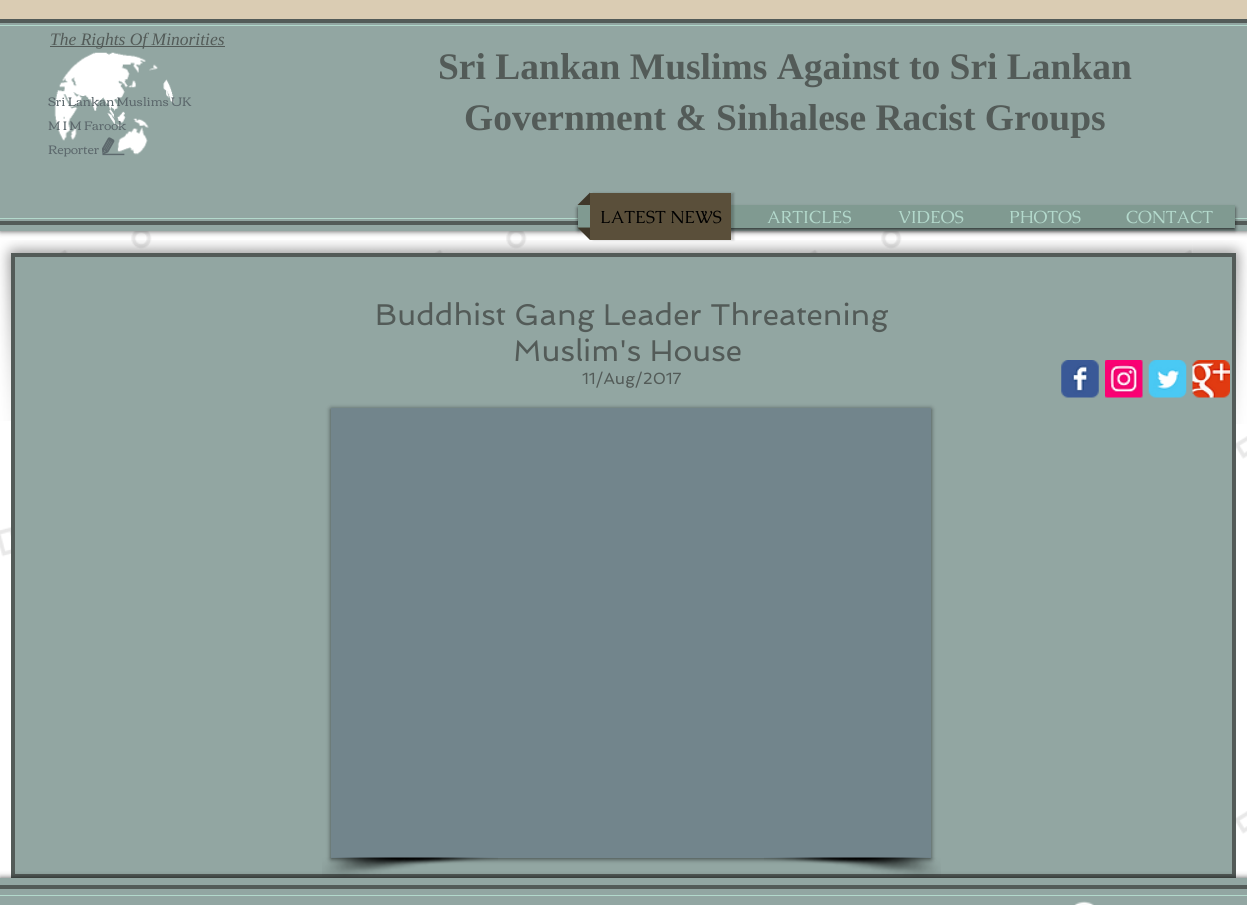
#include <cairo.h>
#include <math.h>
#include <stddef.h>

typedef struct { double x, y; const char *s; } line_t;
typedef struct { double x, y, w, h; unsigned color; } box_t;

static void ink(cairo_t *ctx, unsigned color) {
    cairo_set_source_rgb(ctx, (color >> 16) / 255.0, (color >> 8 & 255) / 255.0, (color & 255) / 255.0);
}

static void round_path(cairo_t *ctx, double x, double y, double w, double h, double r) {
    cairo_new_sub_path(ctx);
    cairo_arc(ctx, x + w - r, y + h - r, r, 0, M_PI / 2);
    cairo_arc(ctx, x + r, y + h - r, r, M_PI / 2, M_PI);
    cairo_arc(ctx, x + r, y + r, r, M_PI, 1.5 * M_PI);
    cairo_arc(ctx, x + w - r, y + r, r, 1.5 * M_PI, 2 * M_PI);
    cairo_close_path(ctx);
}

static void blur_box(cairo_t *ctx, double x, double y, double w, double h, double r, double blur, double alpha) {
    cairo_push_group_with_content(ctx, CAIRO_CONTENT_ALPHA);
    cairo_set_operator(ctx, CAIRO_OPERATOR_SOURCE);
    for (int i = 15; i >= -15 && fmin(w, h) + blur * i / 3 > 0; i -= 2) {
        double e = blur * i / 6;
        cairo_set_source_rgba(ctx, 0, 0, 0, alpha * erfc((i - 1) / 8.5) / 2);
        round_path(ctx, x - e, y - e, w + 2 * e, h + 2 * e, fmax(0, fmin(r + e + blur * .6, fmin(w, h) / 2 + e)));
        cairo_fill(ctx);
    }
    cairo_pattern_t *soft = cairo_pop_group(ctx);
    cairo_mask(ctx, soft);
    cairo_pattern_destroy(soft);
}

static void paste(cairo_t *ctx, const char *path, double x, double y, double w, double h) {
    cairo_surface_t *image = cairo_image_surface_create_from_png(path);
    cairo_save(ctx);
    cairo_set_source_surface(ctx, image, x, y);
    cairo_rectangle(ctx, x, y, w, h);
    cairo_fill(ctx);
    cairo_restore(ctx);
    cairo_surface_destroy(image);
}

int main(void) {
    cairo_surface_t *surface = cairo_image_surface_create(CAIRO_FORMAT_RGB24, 1247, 905);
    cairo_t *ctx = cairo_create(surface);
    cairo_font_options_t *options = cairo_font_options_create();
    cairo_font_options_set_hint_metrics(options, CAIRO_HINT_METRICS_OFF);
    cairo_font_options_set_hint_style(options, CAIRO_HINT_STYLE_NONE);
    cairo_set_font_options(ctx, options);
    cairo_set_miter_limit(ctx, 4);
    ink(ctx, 0xFFFFFF);
    cairo_paint(ctx);
    paste(ctx, "media/13.png", 0, 231, 1247, 603);
    ink(ctx, 0x000000);
    blur_box(ctx, 0, 13, 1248, 218, 0, 3, 0.7);
    {
        static const box_t items[] = {
            {0, 23, 1247, 208, 0x92A6A2},
            {0, 19, 1247, 4, 0x535B58},
            {0, 221, 1247, 4, 0x535B58},
            {0, 25, 1247, 1, 0xB3D9CC},
            {0, 218, 1247, 1, 0xB3D9CC},
            {0, 0, 1247, 19, 0xDACCB3},
            {50, 46, 175, 1, 0x535B58},
        };
        for (size_t i = 0; i < sizeof items / sizeof *items; i++) {
            ink(ctx, items[i].color);
            cairo_rectangle(ctx, items[i].x, items[i].y, items[i].w, items[i].h);
            cairo_fill(ctx);
        }
    }
    cairo_select_font_face(ctx, "Liberation Serif", CAIRO_FONT_SLANT_ITALIC, CAIRO_FONT_WEIGHT_NORMAL);
    cairo_set_font_size(ctx, 17.5);
    cairo_move_to(ctx, 50, 45);
    cairo_show_text(ctx, "The Rights Of Minorities");
    paste(ctx, "media/1.png", 54, 52, 121, 103);
    cairo_select_font_face(ctx, "Liberation Serif", CAIRO_FONT_SLANT_NORMAL, CAIRO_FONT_WEIGHT_BOLD);
    cairo_set_font_size(ctx, 37.5);
    cairo_move_to(ctx, 438, 79);
    cairo_show_text(ctx, "Sri Lankan Muslims Against to Sri Lankan");
    cairo_move_to(ctx, 464, 130);
    cairo_show_text(ctx, "Government & Sinhalese Racist Groups");
    cairo_select_font_face(ctx, "Corben", CAIRO_FONT_SLANT_NORMAL, CAIRO_FONT_WEIGHT_NORMAL);
    cairo_set_font_size(ctx, 12.5);
    ink(ctx, 0x5C686C);
    {
        static const line_t items[] = {
            {48, 106, "Sri Lankan Muslims UK"},
            {48, 130, "M I M Farook"},
            {48, 154, "Reporter"},
        };
        for (size_t i = 0; i < sizeof items / sizeof *items; i++) {
            cairo_move_to(ctx, items[i].x, items[i].y);
            cairo_show_text(ctx, items[i].s);
        }
    }
    paste(ctx, "media/2.png", 102, 137, 23, 19);
    ink(ctx, 0x000000);
    blur_box(ctx, 578, 208, 657, 22, 0, 2, 0.7);
    ink(ctx, 0x809A91);
    cairo_rectangle(ctx, 578, 205, 657, 23);
    cairo_fill(ctx);
    ink(ctx, 0x000000);
    blur_box(ctx, 593, 193, 141, 47, 0, 1, 0.2);
    ink(ctx, 0x3F3729);
    cairo_new_path(ctx);
    cairo_move_to(ctx, 590, 205);
    cairo_line_to(ctx, 577.5, 205);
    cairo_line_to(ctx, 590, 192.5);
    cairo_close_path(ctx);
    cairo_move_to(ctx, 577.5, 227.5);
    cairo_line_to(ctx, 590, 227.5);
    cairo_line_to(ctx, 590, 240);
    cairo_close_path(ctx);
    cairo_fill(ctx);
    ink(ctx, 0x5A4F3A);
    cairo_rectangle(ctx, 590, 193, 141, 47);
    cairo_fill(ctx);
    cairo_select_font_face(ctx, "Caudex", CAIRO_FONT_SLANT_NORMAL, CAIRO_FONT_WEIGHT_NORMAL);
    cairo_set_font_size(ctx, 17.5);
    ink(ctx, 0x000000);
    cairo_move_to(ctx, 600, 223);
    cairo_show_text(ctx, "LATEST NEWS");
    ink(ctx, 0xB3D9CC);
    {
        static const line_t items[] = {
            {767, 223, "ARTICLES"},
            {898, 223, "VIDEOS"},
            {1009, 223, "PHOTOS"},
            {1126, 223, "CONTACT"},
        };
        for (size_t i = 0; i < sizeof items / sizeof *items; i++) {
            cairo_move_to(ctx, items[i].x, items[i].y);
            cairo_show_text(ctx, items[i].s);
        }
    }
    paste(ctx, "media/3.png", 0, 240, 55, 181);
    paste(ctx, "media/4.png", 55, 240, 1138, 13);
    paste(ctx, "media/5.png", 1192, 240, 55, 184);
    ink(ctx, 0x92A6A2);
    cairo_rectangle(ctx, 13, 255, 1221, 621);
    cairo_fill_preserve(ctx);
    ink(ctx, 0x535B58);
    cairo_set_line_width(ctx, 4);
    cairo_stroke(ctx);
    cairo_select_font_face(ctx, "Spinnaker", CAIRO_FONT_SLANT_NORMAL, CAIRO_FONT_WEIGHT_NORMAL);
    cairo_set_font_size(ctx, 30);
    cairo_move_to(ctx, 375, 325);
    cairo_show_text(ctx, "Buddhist Gang Leader Threatening");
    cairo_move_to(ctx, 513, 361);
    cairo_show_text(ctx, "Muslim's House");
    cairo_set_font_size(ctx, 16.25);
    cairo_move_to(ctx, 582, 384);
    cairo_show_text(ctx, "11/Aug/2017");
    paste(ctx, "media/6.png", 1061, 360, 38, 38);
    paste(ctx, "media/7.png", 1105, 360, 38, 38);
    paste(ctx, "media/8.png", 1148, 360, 39, 38);
    paste(ctx, "media/9.png", 1192, 360, 38, 38);
    ink(ctx, 0x000000);
    blur_box(ctx, 331, 409, 600, 450, 0, 2.5, 0.6);
    ink(ctx, 0x72858C);
    cairo_rectangle(ctx, 331, 408, 600, 450);
    cairo_fill(ctx);
    paste(ctx, "media/10.png", 322, 857, 176, 21);
    paste(ctx, "media/11.png", 764, 857, 177, 21);
    ink(ctx, 0x000000);
    blur_box(ctx, 0, 878, 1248, 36, 0, 3, 0.7);
    {
        static const box_t items[] = {
            {0, 878, 1247, 27, 0x92A6A2},
            {0, 885, 1247, 4, 0x535B58},
            {0, 895, 1247, 1, 0xB3D9CC},
        };
        for (size_t i = 0; i < sizeof items / sizeof *items; i++) {
            ink(ctx, items[i].color);
            cairo_rectangle(ctx, items[i].x, items[i].y, items[i].w, items[i].h);
            cairo_fill(ctx);
        }
    }
    paste(ctx, "media/12.png", 1074, 901, 20, 4);
    cairo_surface_write_to_png(surface, "image.png");
    cairo_font_options_destroy(options);
    cairo_destroy(ctx);
    cairo_surface_destroy(surface);
    return 0;
}
